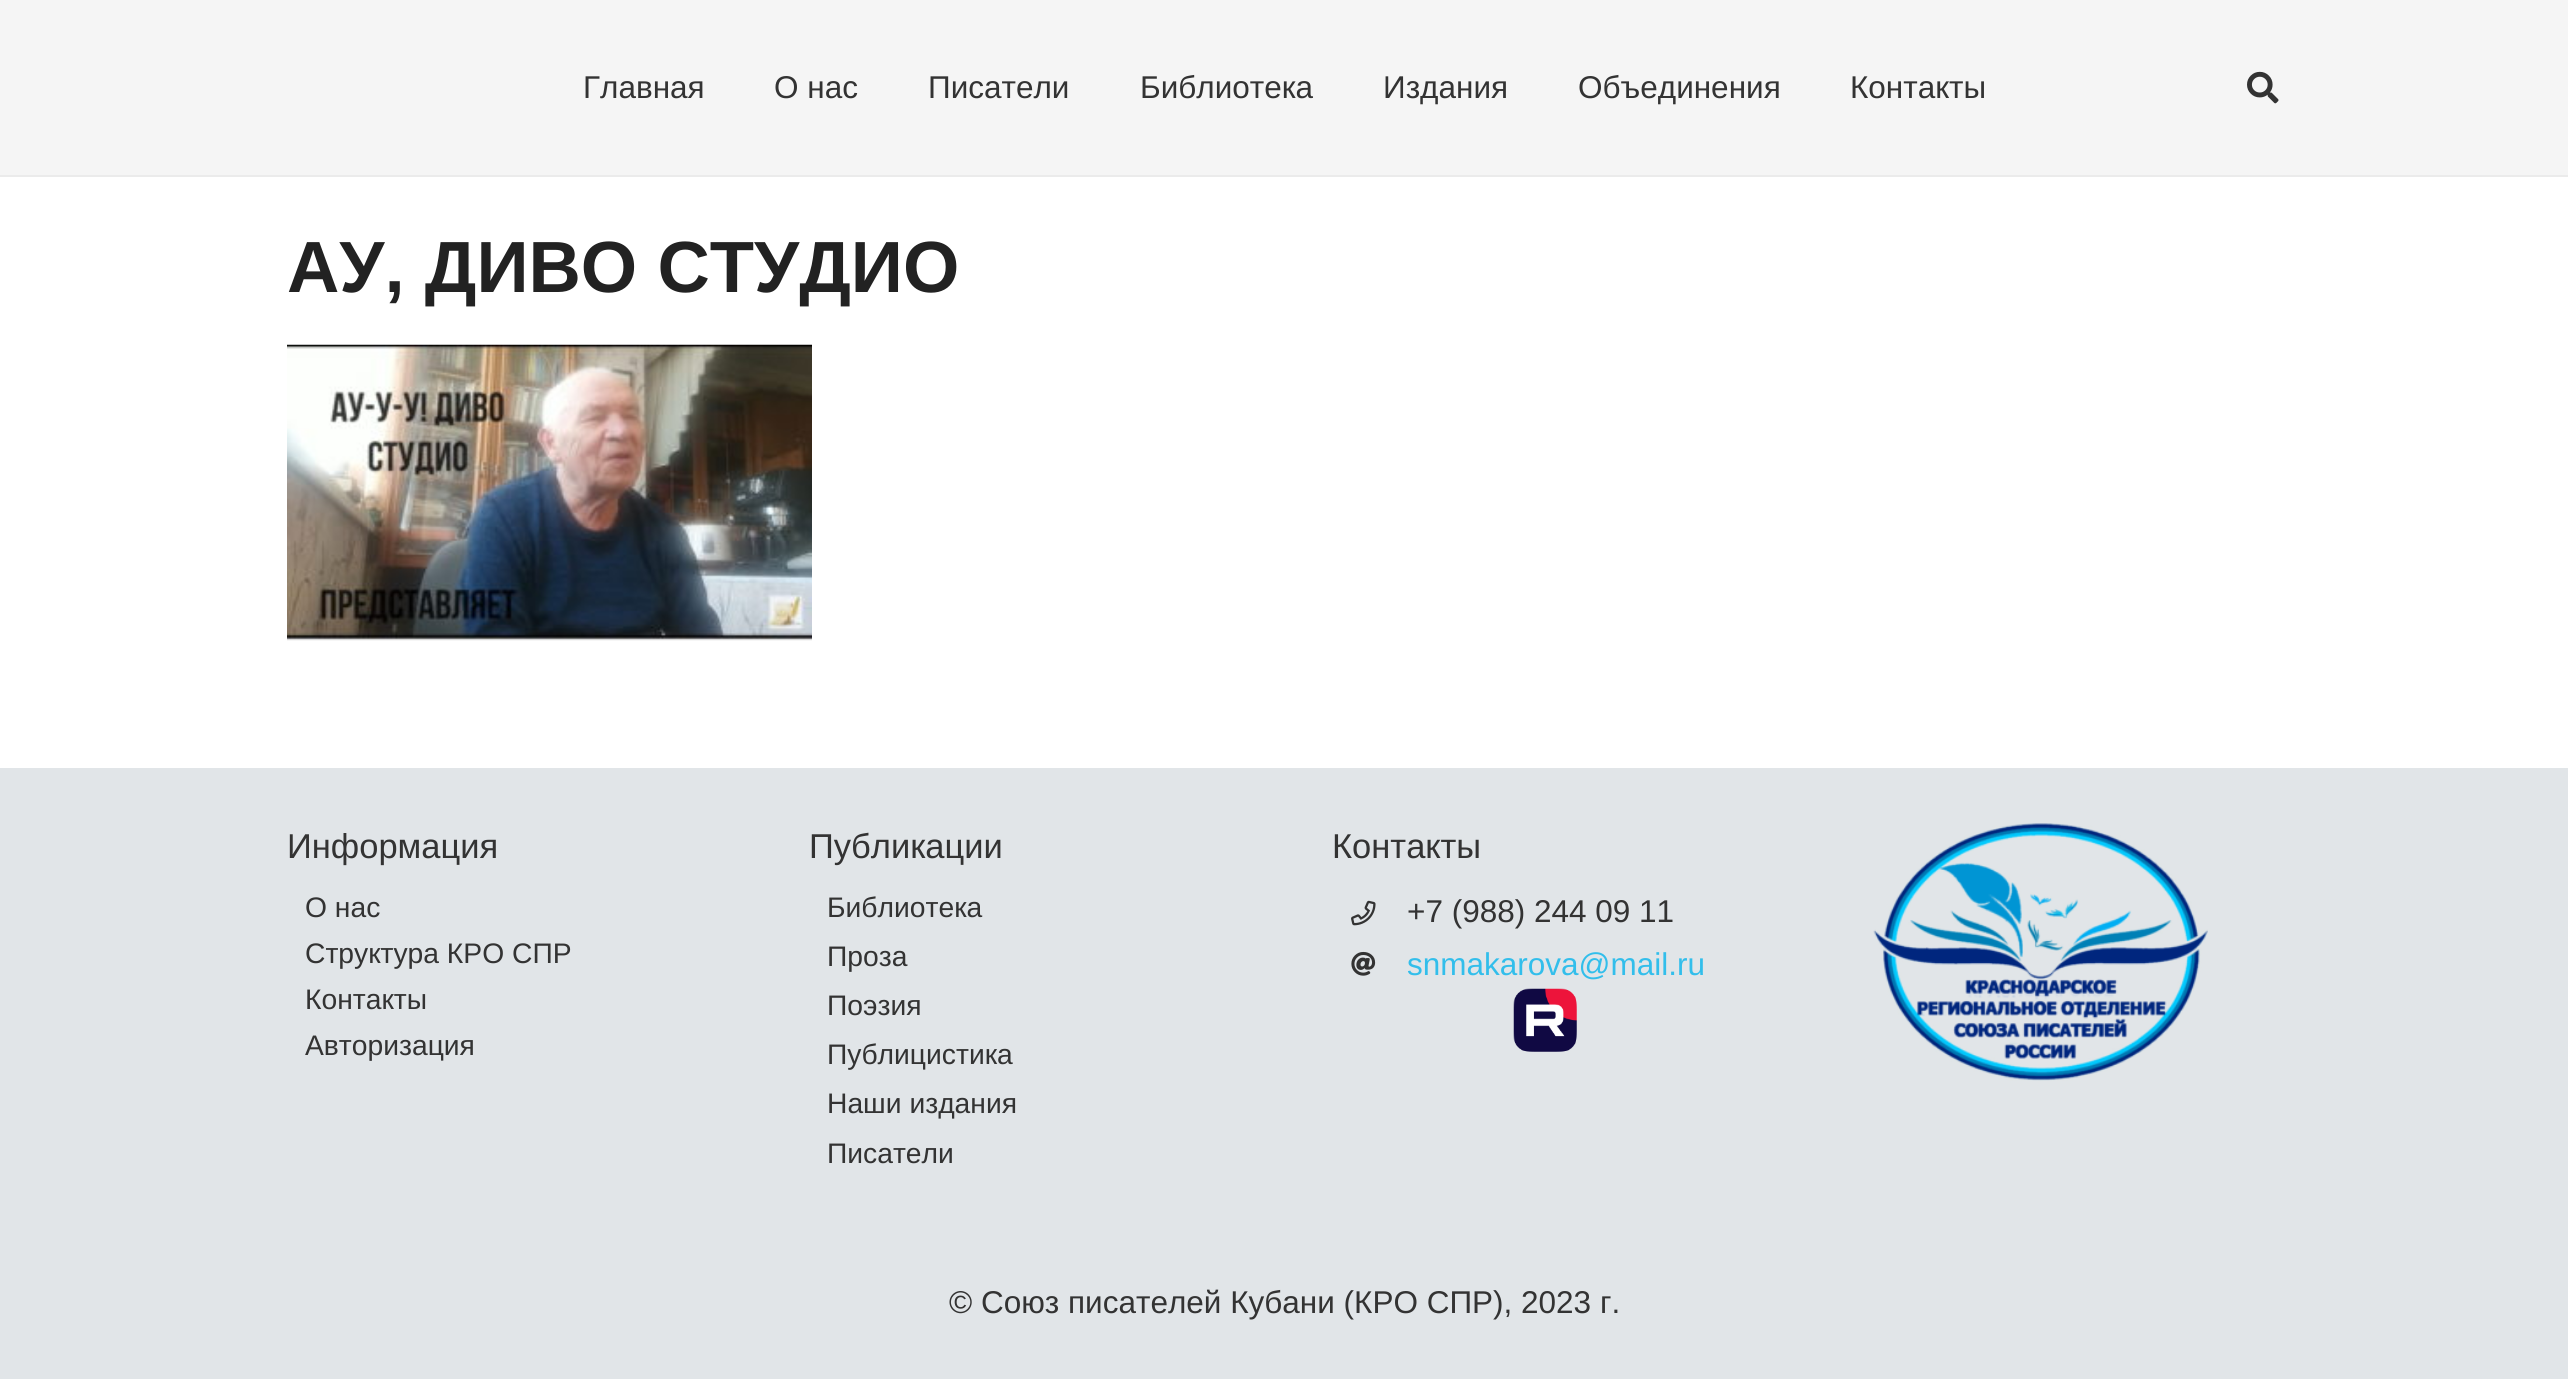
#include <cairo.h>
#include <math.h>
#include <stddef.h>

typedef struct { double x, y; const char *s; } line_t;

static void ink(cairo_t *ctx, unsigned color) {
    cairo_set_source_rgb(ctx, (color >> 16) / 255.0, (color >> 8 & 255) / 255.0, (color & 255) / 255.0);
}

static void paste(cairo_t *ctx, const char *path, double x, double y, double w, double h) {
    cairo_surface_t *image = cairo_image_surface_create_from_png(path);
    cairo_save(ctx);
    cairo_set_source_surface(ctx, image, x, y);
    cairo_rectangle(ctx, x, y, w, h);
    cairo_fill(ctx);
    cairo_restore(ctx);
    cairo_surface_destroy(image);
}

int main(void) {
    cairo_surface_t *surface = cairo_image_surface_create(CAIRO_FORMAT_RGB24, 2568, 1379);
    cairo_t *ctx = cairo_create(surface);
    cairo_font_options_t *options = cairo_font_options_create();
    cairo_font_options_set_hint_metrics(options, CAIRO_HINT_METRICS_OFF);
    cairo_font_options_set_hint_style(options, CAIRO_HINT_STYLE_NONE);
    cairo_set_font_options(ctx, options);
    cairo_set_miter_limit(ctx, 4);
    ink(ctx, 0xFFFFFF);
    cairo_paint(ctx);
    ink(ctx, 0xEBEBEB);
    cairo_rectangle(ctx, 0, 175, 2568, 2);
    cairo_fill(ctx);
    ink(ctx, 0xF5F5F5);
    cairo_rectangle(ctx, 0, 0, 2568, 175);
    cairo_fill(ctx);
    cairo_select_font_face(ctx, "Liberation Sans", CAIRO_FONT_SLANT_NORMAL, CAIRO_FONT_WEIGHT_NORMAL);
    cairo_set_font_size(ctx, 31.5);
    ink(ctx, 0x333333);
    {
        static const line_t items[] = {
            {583, 98, "Главная"},
            {774, 98, "О нас"},
            {928, 98, "Писатели"},
            {1140, 98, "Библиотека"},
            {1383, 98, "Издания"},
            {1578, 98, "Объединения"},
            {1850, 98, "Контакты"},
        };
        for (size_t i = 0; i < sizeof items / sizeof *items; i++) {
            cairo_move_to(ctx, items[i].x, items[i].y);
            cairo_show_text(ctx, items[i].s);
        }
    }
    paste(ctx, "media/1.png", 2247, 71, 32, 33);
    cairo_select_font_face(ctx, "Liberation Sans", CAIRO_FONT_SLANT_NORMAL, CAIRO_FONT_WEIGHT_BOLD);
    cairo_set_font_size(ctx, 72.5);
    ink(ctx, 0x222222);
    cairo_move_to(ctx, 287, 292);
    cairo_show_text(ctx, "АУ, ДИВО СТУДИО");
    paste(ctx, "media/2.png", 287, 344, 525, 297);
    ink(ctx, 0xE1E5E8);
    cairo_rectangle(ctx, 0, 768, 2568, 611);
    cairo_fill(ctx);
    cairo_select_font_face(ctx, "Liberation Sans", CAIRO_FONT_SLANT_NORMAL, CAIRO_FONT_WEIGHT_NORMAL);
    cairo_set_font_size(ctx, 34.5);
    ink(ctx, 0x333333);
    cairo_move_to(ctx, 287, 858);
    cairo_show_text(ctx, "Информация");
    cairo_set_font_size(ctx, 28.25);
    {
        static const line_t items[] = {
            {305, 917, "О нас"},
            {305, 963, "Структура КРО СПР"},
            {305, 1009, "Контакты"},
            {305, 1055, "Авторизация"},
        };
        for (size_t i = 0; i < sizeof items / sizeof *items; i++) {
            cairo_move_to(ctx, items[i].x, items[i].y);
            cairo_show_text(ctx, items[i].s);
        }
    }
    cairo_set_font_size(ctx, 34.5);
    cairo_move_to(ctx, 809, 858);
    cairo_show_text(ctx, "Публикации");
    cairo_set_font_size(ctx, 28.25);
    {
        static const line_t items[] = {
            {827, 917, "Библиотека"},
            {827, 966, "Проза"},
            {827, 1015, "Поэзия"},
            {827, 1064, "Публицистика"},
            {827, 1113, "Наши издания"},
            {827, 1163, "Писатели"},
        };
        for (size_t i = 0; i < sizeof items / sizeof *items; i++) {
            cairo_move_to(ctx, items[i].x, items[i].y);
            cairo_show_text(ctx, items[i].s);
        }
    }
    cairo_set_font_size(ctx, 34.5);
    cairo_move_to(ctx, 1332, 858);
    cairo_show_text(ctx, "Контакты");
    paste(ctx, "media/3.png", 1351, 900, 25, 26);
    cairo_set_font_size(ctx, 31.5);
    cairo_move_to(ctx, 1407, 922);
    cairo_show_text(ctx, "+7 (988) 244 09 11");
    paste(ctx, "media/4.png", 1351, 951, 25, 25);
    ink(ctx, 0x32BEEB);
    cairo_move_to(ctx, 1407, 975);
    cairo_show_text(ctx, "snmakarova@mail.ru");
    paste(ctx, "media/5.png", 1513, 988, 64, 64);
    paste(ctx, "media/6.png", 1873, 823, 335, 258);
    ink(ctx, 0x333333);
    cairo_move_to(ctx, 949, 1313);
    cairo_show_text(ctx, "© Союз писателей Кубани (КРО СПР), 2023 г.");
    cairo_surface_write_to_png(surface, "image.png");
    cairo_font_options_destroy(options);
    cairo_destroy(ctx);
    cairo_surface_destroy(surface);
    return 0;
}
